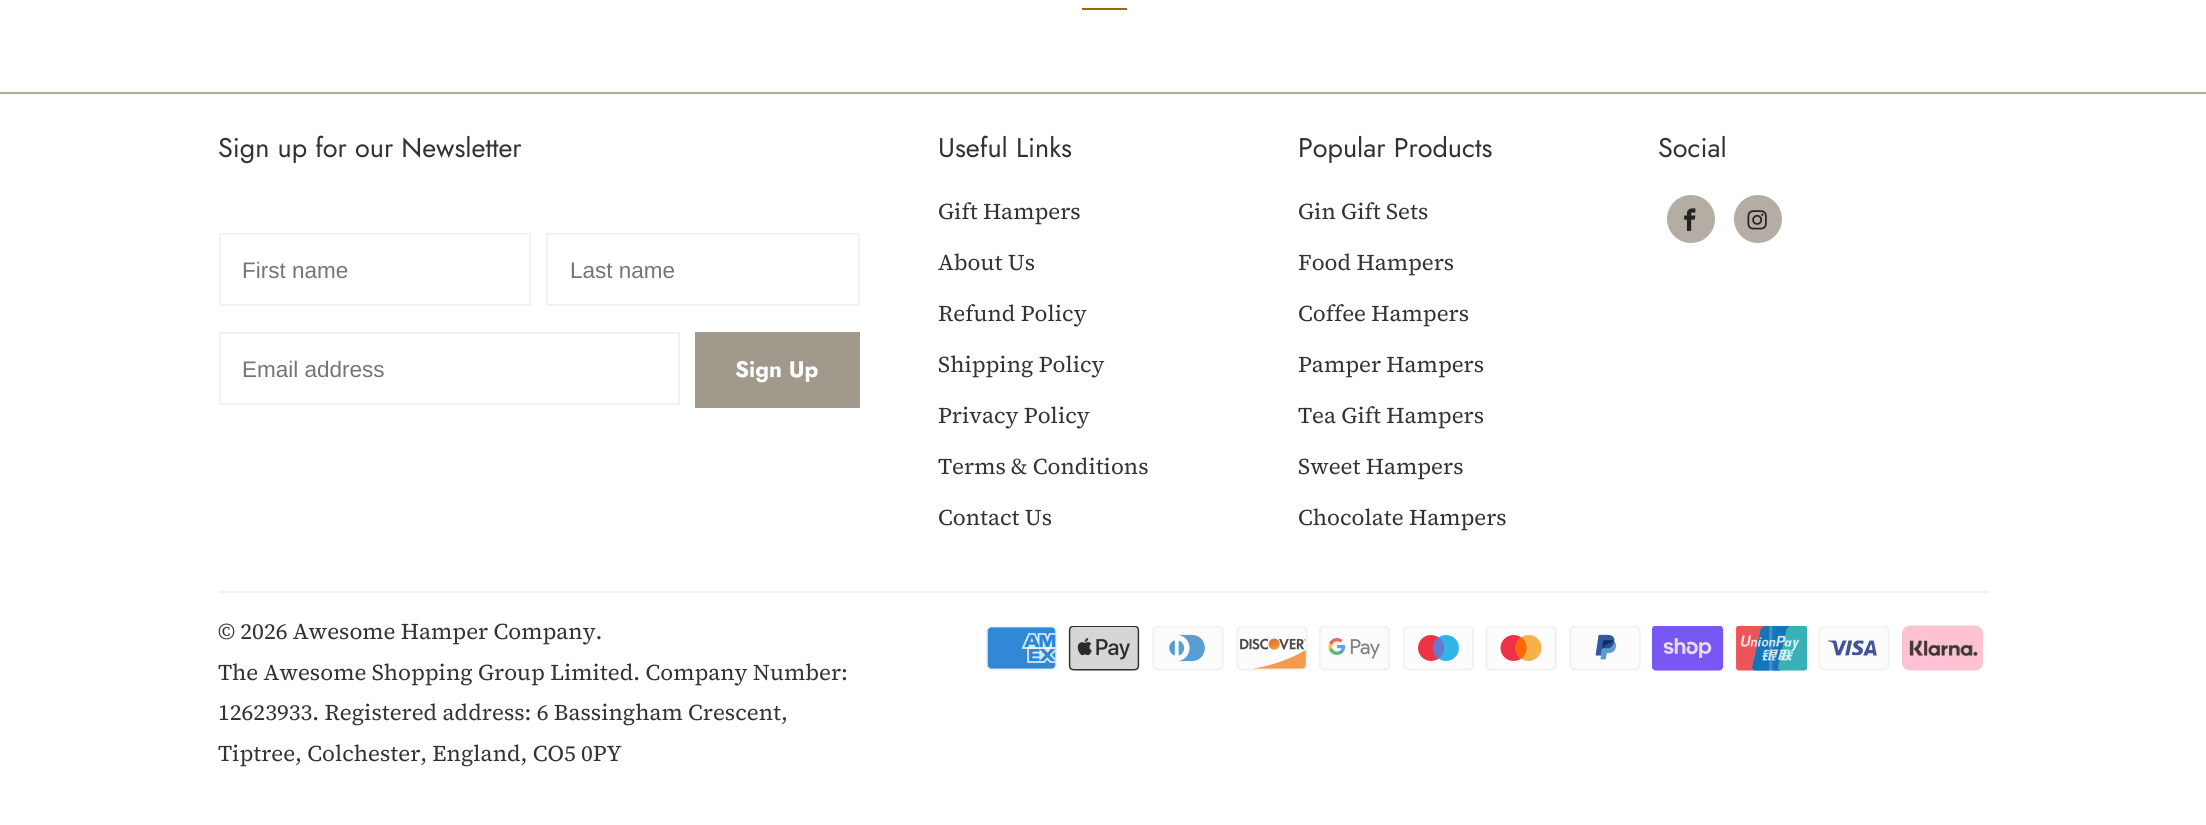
#include <cairo.h>
#include <math.h>
#include <stddef.h>

typedef struct { double x, y; const char *s; } line_t;

static void ink(cairo_t *ctx, unsigned color) {
    cairo_set_source_rgb(ctx, (color >> 16) / 255.0, (color >> 8 & 255) / 255.0, (color & 255) / 255.0);
}

static void paste(cairo_t *ctx, const char *path, double x, double y, double w, double h) {
    cairo_surface_t *image = cairo_image_surface_create_from_png(path);
    cairo_save(ctx);
    cairo_set_source_surface(ctx, image, x, y);
    cairo_rectangle(ctx, x, y, w, h);
    cairo_fill(ctx);
    cairo_restore(ctx);
    cairo_surface_destroy(image);
}

int main(void) {
    cairo_surface_t *surface = cairo_image_surface_create(CAIRO_FORMAT_RGB24, 2206, 825);
    cairo_t *ctx = cairo_create(surface);
    cairo_font_options_t *options = cairo_font_options_create();
    cairo_font_options_set_hint_metrics(options, CAIRO_HINT_METRICS_OFF);
    cairo_font_options_set_hint_style(options, CAIRO_HINT_STYLE_NONE);
    cairo_set_font_options(ctx, options);
    cairo_set_miter_limit(ctx, 4);
    ink(ctx, 0xFFFFFF);
    cairo_paint(ctx);
    ink(ctx, 0x9D6704);
    cairo_rectangle(ctx, 1082, 8, 45, 2);
    cairo_fill(ctx);
    ink(ctx, 0xB4AC9F);
    cairo_rectangle(ctx, 0, 92, 2206, 2);
    cairo_fill(ctx);
    cairo_select_font_face(ctx, "Jost", CAIRO_FONT_SLANT_NORMAL, CAIRO_FONT_WEIGHT_NORMAL);
    cairo_set_font_size(ctx, 27);
    ink(ctx, 0x323232);
    cairo_move_to(ctx, 218, 157);
    cairo_show_text(ctx, "Sign up for our Newsletter");
    cairo_rectangle(ctx, 220, 234, 310, 71);
    ink(ctx, 0xF2F2F2);
    cairo_stroke(ctx);
    cairo_select_font_face(ctx, "Liberation Sans", CAIRO_FONT_SLANT_NORMAL, CAIRO_FONT_WEIGHT_NORMAL);
    cairo_set_font_size(ctx, 22.5);
    ink(ctx, 0x757575);
    cairo_move_to(ctx, 242, 278);
    cairo_show_text(ctx, "First name");
    cairo_rectangle(ctx, 547, 234, 312, 71);
    ink(ctx, 0xF2F2F2);
    cairo_stroke(ctx);
    ink(ctx, 0x757575);
    cairo_move_to(ctx, 570, 278);
    cairo_show_text(ctx, "Last name");
    cairo_rectangle(ctx, 220, 333, 459, 71);
    ink(ctx, 0xF2F2F2);
    cairo_stroke(ctx);
    ink(ctx, 0x757575);
    cairo_move_to(ctx, 242, 377);
    cairo_show_text(ctx, "Email address");
    ink(ctx, 0xA1998C);
    cairo_rectangle(ctx, 695, 332, 165, 76);
    cairo_fill(ctx);
    cairo_select_font_face(ctx, "Jost", CAIRO_FONT_SLANT_NORMAL, CAIRO_FONT_WEIGHT_BOLD);
    ink(ctx, 0xFFFFFF);
    cairo_move_to(ctx, 735, 377);
    cairo_show_text(ctx, "Sign Up");
    cairo_select_font_face(ctx, "Jost", CAIRO_FONT_SLANT_NORMAL, CAIRO_FONT_WEIGHT_NORMAL);
    cairo_set_font_size(ctx, 27);
    ink(ctx, 0x323232);
    cairo_move_to(ctx, 938, 157);
    cairo_show_text(ctx, "Useful Links");
    cairo_select_font_face(ctx, "Source Serif 4", CAIRO_FONT_SLANT_NORMAL, CAIRO_FONT_WEIGHT_NORMAL);
    cairo_set_font_size(ctx, 22.5);
    {
        static const line_t items[] = {
            {938, 219, "Gift Hampers"},
            {938, 270, "About Us"},
            {938, 321, "Refund Policy"},
            {938, 372, "Shipping Policy"},
            {938, 423, "Privacy Policy"},
            {938, 474, "Terms & Conditions"},
            {938, 525, "Contact Us"},
        };
        for (size_t i = 0; i < sizeof items / sizeof *items; i++) {
            cairo_move_to(ctx, items[i].x, items[i].y);
            cairo_show_text(ctx, items[i].s);
        }
    }
    cairo_select_font_face(ctx, "Jost", CAIRO_FONT_SLANT_NORMAL, CAIRO_FONT_WEIGHT_NORMAL);
    cairo_set_font_size(ctx, 27);
    cairo_move_to(ctx, 1298, 157);
    cairo_show_text(ctx, "Popular Products");
    cairo_select_font_face(ctx, "Source Serif 4", CAIRO_FONT_SLANT_NORMAL, CAIRO_FONT_WEIGHT_NORMAL);
    cairo_set_font_size(ctx, 22.5);
    {
        static const line_t items[] = {
            {1298, 219, "Gin Gift Sets"},
            {1298, 270, "Food Hampers"},
            {1298, 321, "Coffee Hampers"},
            {1298, 372, "Pamper Hampers"},
            {1298, 423, "Tea Gift Hampers"},
            {1298, 474, "Sweet Hampers"},
            {1298, 525, "Chocolate Hampers"},
        };
        for (size_t i = 0; i < sizeof items / sizeof *items; i++) {
            cairo_move_to(ctx, items[i].x, items[i].y);
            cairo_show_text(ctx, items[i].s);
        }
    }
    cairo_select_font_face(ctx, "Jost", CAIRO_FONT_SLANT_NORMAL, CAIRO_FONT_WEIGHT_NORMAL);
    cairo_set_font_size(ctx, 27);
    cairo_move_to(ctx, 1658, 157);
    cairo_show_text(ctx, "Social");
    ink(ctx, 0xB4ADA3);
    cairo_new_path(ctx);
    cairo_arc(ctx, 1691, 219, 24, 0, 2 * M_PI);
    cairo_fill(ctx);
    paste(ctx, "media/1.png", 1684, 208, 12, 23);
    cairo_arc(ctx, 1758, 219, 24, 0, 2 * M_PI);
    cairo_fill(ctx);
    paste(ctx, "media/2.png", 1747, 210, 20, 20);
    ink(ctx, 0xF2F2F2);
    cairo_rectangle(ctx, 219, 591, 1770, 2);
    cairo_fill(ctx);
    cairo_select_font_face(ctx, "Source Serif 4", CAIRO_FONT_SLANT_NORMAL, CAIRO_FONT_WEIGHT_NORMAL);
    cairo_set_font_size(ctx, 22.5);
    ink(ctx, 0x323232);
    {
        static const line_t items[] = {
            {218, 639, "© 2026 Awesome Hamper Company."},
            {218, 680, "The Awesome Shopping Group Limited. Company Number:"},
            {218, 720, "12623933. Registered address: 6 Bassingham Crescent,"},
            {218, 761, "Tiptree, Colchester, England, CO5 0PY"},
        };
        for (size_t i = 0; i < sizeof items / sizeof *items; i++) {
            cairo_move_to(ctx, items[i].x, items[i].y);
            cairo_show_text(ctx, items[i].s);
        }
    }
    paste(ctx, "media/3.png", 986, 626, 71, 45);
    paste(ctx, "media/4.png", 1068, 626, 72, 45);
    paste(ctx, "media/5.png", 1152, 626, 72, 45);
    paste(ctx, "media/6.png", 1236, 626, 72, 45);
    paste(ctx, "media/7.png", 1319, 626, 71, 45);
    paste(ctx, "media/8.png", 1403, 626, 71, 45);
    paste(ctx, "media/9.png", 1485, 626, 72, 45);
    paste(ctx, "media/10.png", 1569, 626, 72, 45);
    paste(ctx, "media/11.png", 1652, 626, 72, 45);
    paste(ctx, "media/12.png", 1736, 626, 72, 45);
    paste(ctx, "media/13.png", 1818, 626, 72, 45);
    paste(ctx, "media/14.png", 1902, 625, 81, 46);
    cairo_surface_write_to_png(surface, "image.png");
    cairo_font_options_destroy(options);
    cairo_destroy(ctx);
    cairo_surface_destroy(surface);
    return 0;
}
